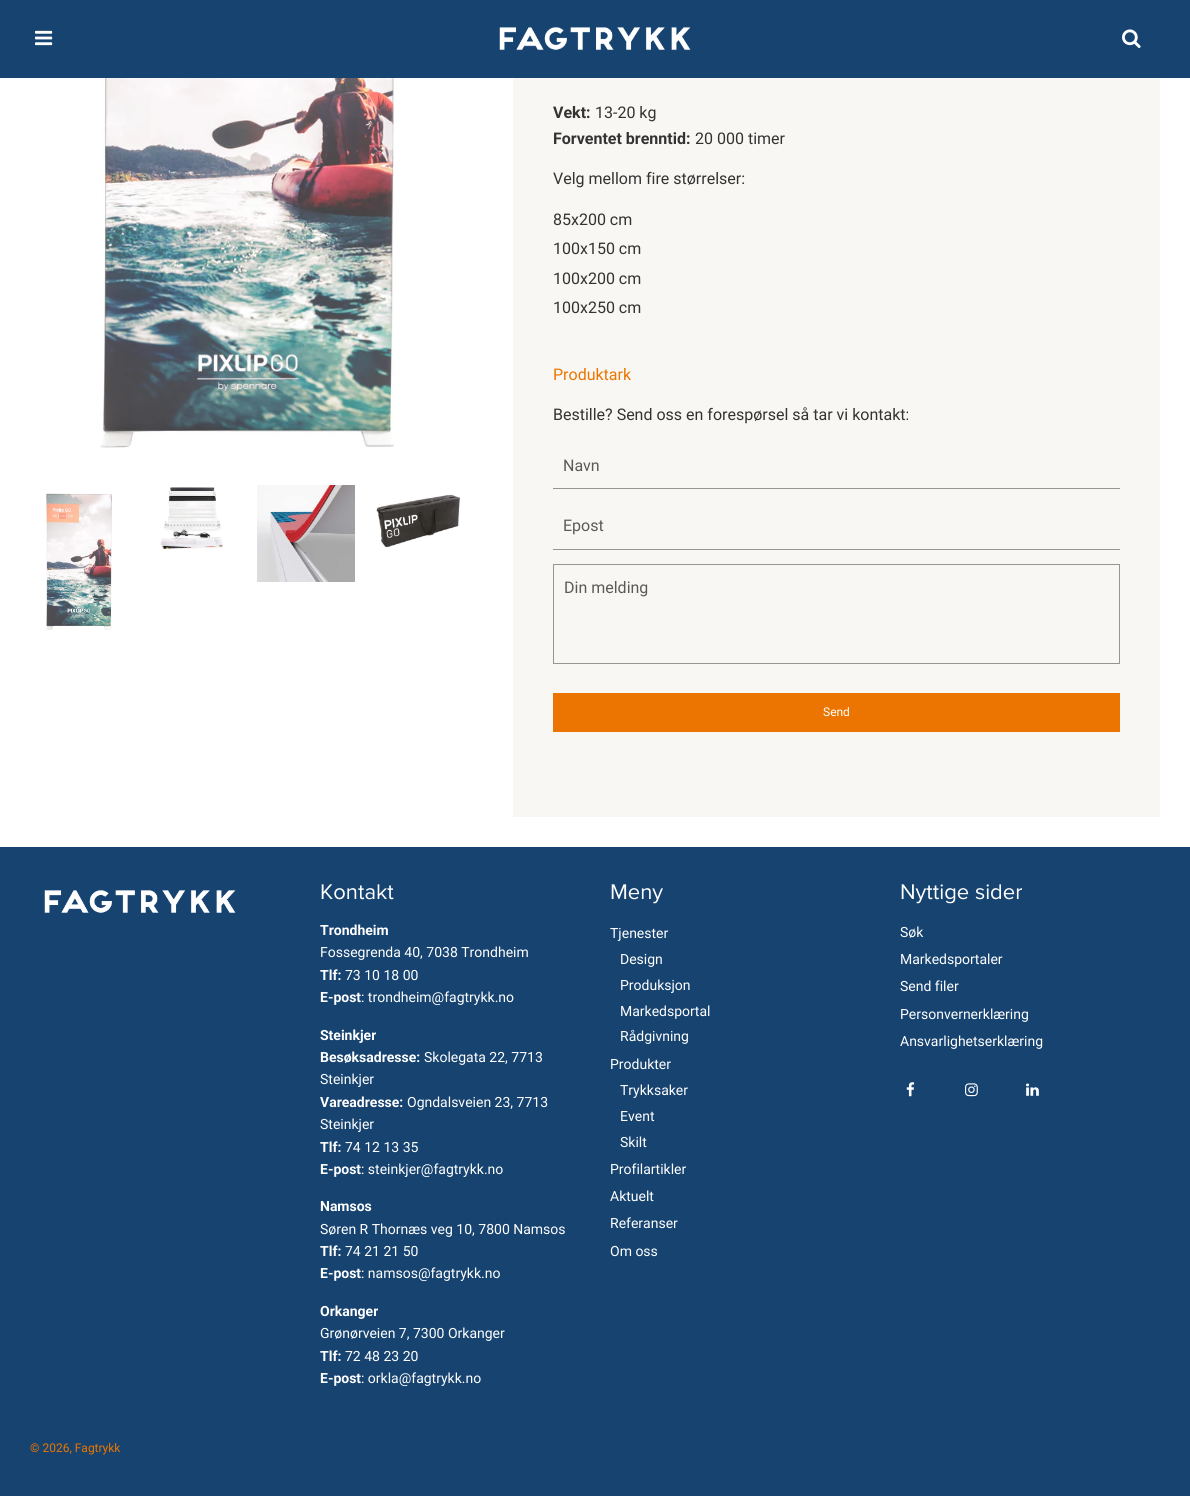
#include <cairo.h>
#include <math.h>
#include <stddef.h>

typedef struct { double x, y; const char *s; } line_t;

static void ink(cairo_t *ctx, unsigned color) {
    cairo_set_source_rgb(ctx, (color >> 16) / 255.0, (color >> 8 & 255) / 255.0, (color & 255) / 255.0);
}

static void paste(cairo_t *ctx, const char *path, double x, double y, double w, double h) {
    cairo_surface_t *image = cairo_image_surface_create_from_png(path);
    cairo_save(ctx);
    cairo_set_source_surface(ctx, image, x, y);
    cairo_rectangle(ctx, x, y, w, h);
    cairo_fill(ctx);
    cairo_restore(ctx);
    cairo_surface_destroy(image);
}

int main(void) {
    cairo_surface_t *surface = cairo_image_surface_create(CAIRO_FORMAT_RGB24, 1190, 1496);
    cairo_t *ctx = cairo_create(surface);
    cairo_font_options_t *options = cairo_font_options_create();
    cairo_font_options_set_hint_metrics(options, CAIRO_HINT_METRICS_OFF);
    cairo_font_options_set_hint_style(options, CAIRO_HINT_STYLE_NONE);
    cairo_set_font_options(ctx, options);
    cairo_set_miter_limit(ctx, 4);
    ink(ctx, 0xFFFFFF);
    cairo_paint(ctx);
    ink(ctx, 0x164370);
    cairo_rectangle(ctx, 0, 0, 1190, 78);
    cairo_fill(ctx);
    paste(ctx, "media/1.png", 35, 30, 18, 16);
    paste(ctx, "media/2.png", 499, 27, 192, 24);
    paste(ctx, "media/3.png", 1122, 29, 19, 19);
    paste(ctx, "media/4.png", 100, 78, 294, 370);
    paste(ctx, "media/5.png", 46, 493, 66, 137);
    paste(ctx, "media/6.png", 160, 487, 63, 63);
    paste(ctx, "media/7.png", 257, 485, 98, 97);
    paste(ctx, "media/8.png", 376, 494, 85, 54);
    ink(ctx, 0xF9F7F3);
    cairo_rectangle(ctx, 513, 78, 647, 739);
    cairo_fill(ctx);
    cairo_select_font_face(ctx, "Roboto", CAIRO_FONT_SLANT_NORMAL, CAIRO_FONT_WEIGHT_BOLD);
    cairo_set_font_size(ctx, 16);
    ink(ctx, 0x333333);
    cairo_move_to(ctx, 553, 118);
    cairo_show_text(ctx, "Vekt:");
    cairo_select_font_face(ctx, "Roboto", CAIRO_FONT_SLANT_NORMAL, CAIRO_FONT_WEIGHT_NORMAL);
    cairo_move_to(ctx, 595, 118);
    cairo_show_text(ctx, "13-20 kg");
    cairo_select_font_face(ctx, "Roboto", CAIRO_FONT_SLANT_NORMAL, CAIRO_FONT_WEIGHT_BOLD);
    cairo_move_to(ctx, 553, 144);
    cairo_show_text(ctx, "Forventet brenntid:");
    cairo_select_font_face(ctx, "Roboto", CAIRO_FONT_SLANT_NORMAL, CAIRO_FONT_WEIGHT_NORMAL);
    {
        static const line_t items[] = {
            {695, 144, "20 000 timer"},
            {553, 184, "Velg mellom fire størrelser:"},
            {553, 225, "85x200 cm"},
            {553, 254, "100x150 cm"},
            {553, 284, "100x200 cm"},
            {553, 313, "100x250 cm"},
        };
        for (size_t i = 0; i < sizeof items / sizeof *items; i++) {
            cairo_move_to(ctx, items[i].x, items[i].y);
            cairo_show_text(ctx, items[i].s);
        }
    }
    ink(ctx, 0xEB7500);
    cairo_move_to(ctx, 553, 380);
    cairo_show_text(ctx, "Produktark");
    ink(ctx, 0x333333);
    cairo_move_to(ctx, 553, 420);
    cairo_show_text(ctx, "Bestille? Send oss en forespørsel så tar vi kontakt:");
    ink(ctx, 0x969593);
    cairo_rectangle(ctx, 553, 488, 567, 1);
    cairo_fill(ctx);
    ink(ctx, 0x5B5A59);
    cairo_move_to(ctx, 563, 471);
    cairo_show_text(ctx, "Navn");
    ink(ctx, 0x969593);
    cairo_rectangle(ctx, 553, 549, 567, 1);
    cairo_fill(ctx);
    ink(ctx, 0x5B5A59);
    cairo_move_to(ctx, 563, 531);
    cairo_show_text(ctx, "Epost");
    cairo_rectangle(ctx, 553.5, 564.5, 566, 99);
    ink(ctx, 0x969593);
    cairo_set_line_width(ctx, 1);
    cairo_stroke(ctx);
    ink(ctx, 0x5B5A59);
    cairo_move_to(ctx, 564, 593);
    cairo_show_text(ctx, "Din melding");
    ink(ctx, 0xEB7500);
    cairo_rectangle(ctx, 553, 693, 567, 39);
    cairo_fill(ctx);
    cairo_set_font_size(ctx, 12);
    ink(ctx, 0xFFFFFF);
    cairo_move_to(ctx, 823, 716);
    cairo_show_text(ctx, "Send");
    ink(ctx, 0x164370);
    cairo_rectangle(ctx, 0, 847, 1190, 649);
    cairo_fill(ctx);
    paste(ctx, "media/9.png", 44, 890, 192, 23);
    cairo_select_font_face(ctx, "Proxima Nova", CAIRO_FONT_SLANT_NORMAL, CAIRO_FONT_WEIGHT_NORMAL);
    cairo_set_font_size(ctx, 22);
    ink(ctx, 0xFFFFFF);
    cairo_move_to(ctx, 320, 899);
    cairo_show_text(ctx, "Kontakt");
    cairo_select_font_face(ctx, "Roboto", CAIRO_FONT_SLANT_NORMAL, CAIRO_FONT_WEIGHT_BOLD);
    cairo_set_font_size(ctx, 14);
    cairo_move_to(ctx, 320, 935);
    cairo_show_text(ctx, "Trondheim");
    cairo_select_font_face(ctx, "Roboto", CAIRO_FONT_SLANT_NORMAL, CAIRO_FONT_WEIGHT_NORMAL);
    cairo_move_to(ctx, 320, 957);
    cairo_show_text(ctx, "Fossegrenda 40, 7038 Trondheim");
    cairo_select_font_face(ctx, "Roboto", CAIRO_FONT_SLANT_NORMAL, CAIRO_FONT_WEIGHT_BOLD);
    cairo_move_to(ctx, 320, 980);
    cairo_show_text(ctx, "Tlf:");
    cairo_select_font_face(ctx, "Roboto", CAIRO_FONT_SLANT_NORMAL, CAIRO_FONT_WEIGHT_NORMAL);
    cairo_move_to(ctx, 345, 980);
    cairo_show_text(ctx, "73 10 18 00");
    cairo_select_font_face(ctx, "Roboto", CAIRO_FONT_SLANT_NORMAL, CAIRO_FONT_WEIGHT_BOLD);
    cairo_move_to(ctx, 320, 1002);
    cairo_show_text(ctx, "E-post");
    cairo_select_font_face(ctx, "Roboto", CAIRO_FONT_SLANT_NORMAL, CAIRO_FONT_WEIGHT_NORMAL);
    cairo_move_to(ctx, 361, 1002);
    cairo_show_text(ctx, ": trondheim@fagtrykk.no");
    cairo_select_font_face(ctx, "Roboto", CAIRO_FONT_SLANT_NORMAL, CAIRO_FONT_WEIGHT_BOLD);
    cairo_move_to(ctx, 320, 1040);
    cairo_show_text(ctx, "Steinkjer");
    cairo_move_to(ctx, 320, 1062);
    cairo_show_text(ctx, "Besøksadresse:");
    cairo_select_font_face(ctx, "Roboto", CAIRO_FONT_SLANT_NORMAL, CAIRO_FONT_WEIGHT_NORMAL);
    cairo_move_to(ctx, 424, 1062);
    cairo_show_text(ctx, "Skolegata 22, 7713");
    cairo_move_to(ctx, 320, 1084);
    cairo_show_text(ctx, "Steinkjer");
    cairo_select_font_face(ctx, "Roboto", CAIRO_FONT_SLANT_NORMAL, CAIRO_FONT_WEIGHT_BOLD);
    cairo_move_to(ctx, 320, 1107);
    cairo_show_text(ctx, "Vareadresse:");
    cairo_select_font_face(ctx, "Roboto", CAIRO_FONT_SLANT_NORMAL, CAIRO_FONT_WEIGHT_NORMAL);
    cairo_move_to(ctx, 407, 1107);
    cairo_show_text(ctx, "Ogndalsveien 23, 7713");
    cairo_move_to(ctx, 320, 1129);
    cairo_show_text(ctx, "Steinkjer");
    cairo_select_font_face(ctx, "Roboto", CAIRO_FONT_SLANT_NORMAL, CAIRO_FONT_WEIGHT_BOLD);
    cairo_move_to(ctx, 320, 1152);
    cairo_show_text(ctx, "Tlf:");
    cairo_select_font_face(ctx, "Roboto", CAIRO_FONT_SLANT_NORMAL, CAIRO_FONT_WEIGHT_NORMAL);
    cairo_move_to(ctx, 345, 1152);
    cairo_show_text(ctx, "74 12 13 35");
    cairo_select_font_face(ctx, "Roboto", CAIRO_FONT_SLANT_NORMAL, CAIRO_FONT_WEIGHT_BOLD);
    cairo_move_to(ctx, 320, 1174);
    cairo_show_text(ctx, "E-post");
    cairo_select_font_face(ctx, "Roboto", CAIRO_FONT_SLANT_NORMAL, CAIRO_FONT_WEIGHT_NORMAL);
    cairo_move_to(ctx, 361, 1174);
    cairo_show_text(ctx, ": steinkjer@fagtrykk.no");
    cairo_select_font_face(ctx, "Roboto", CAIRO_FONT_SLANT_NORMAL, CAIRO_FONT_WEIGHT_BOLD);
    cairo_move_to(ctx, 320, 1211);
    cairo_show_text(ctx, "Namsos");
    cairo_select_font_face(ctx, "Roboto", CAIRO_FONT_SLANT_NORMAL, CAIRO_FONT_WEIGHT_NORMAL);
    cairo_move_to(ctx, 320, 1234);
    cairo_show_text(ctx, "Søren R Thornæs veg 10, 7800 Namsos");
    cairo_select_font_face(ctx, "Roboto", CAIRO_FONT_SLANT_NORMAL, CAIRO_FONT_WEIGHT_BOLD);
    cairo_move_to(ctx, 320, 1256);
    cairo_show_text(ctx, "Tlf:");
    cairo_select_font_face(ctx, "Roboto", CAIRO_FONT_SLANT_NORMAL, CAIRO_FONT_WEIGHT_NORMAL);
    cairo_move_to(ctx, 345, 1256);
    cairo_show_text(ctx, "74 21 21 50");
    cairo_select_font_face(ctx, "Roboto", CAIRO_FONT_SLANT_NORMAL, CAIRO_FONT_WEIGHT_BOLD);
    cairo_move_to(ctx, 320, 1278);
    cairo_show_text(ctx, "E-post");
    cairo_select_font_face(ctx, "Roboto", CAIRO_FONT_SLANT_NORMAL, CAIRO_FONT_WEIGHT_NORMAL);
    cairo_move_to(ctx, 361, 1278);
    cairo_show_text(ctx, ": namsos@fagtrykk.no");
    cairo_select_font_face(ctx, "Roboto", CAIRO_FONT_SLANT_NORMAL, CAIRO_FONT_WEIGHT_BOLD);
    cairo_move_to(ctx, 320, 1316);
    cairo_show_text(ctx, "Orkanger");
    cairo_select_font_face(ctx, "Roboto", CAIRO_FONT_SLANT_NORMAL, CAIRO_FONT_WEIGHT_NORMAL);
    cairo_move_to(ctx, 320, 1338);
    cairo_show_text(ctx, "Grønørveien 7, 7300 Orkanger");
    cairo_select_font_face(ctx, "Roboto", CAIRO_FONT_SLANT_NORMAL, CAIRO_FONT_WEIGHT_BOLD);
    cairo_move_to(ctx, 320, 1361);
    cairo_show_text(ctx, "Tlf:");
    cairo_select_font_face(ctx, "Roboto", CAIRO_FONT_SLANT_NORMAL, CAIRO_FONT_WEIGHT_NORMAL);
    cairo_move_to(ctx, 345, 1361);
    cairo_show_text(ctx, "72 48 23 20");
    cairo_select_font_face(ctx, "Roboto", CAIRO_FONT_SLANT_NORMAL, CAIRO_FONT_WEIGHT_BOLD);
    cairo_move_to(ctx, 320, 1383);
    cairo_show_text(ctx, "E-post");
    cairo_select_font_face(ctx, "Roboto", CAIRO_FONT_SLANT_NORMAL, CAIRO_FONT_WEIGHT_NORMAL);
    cairo_move_to(ctx, 361, 1383);
    cairo_show_text(ctx, ": orkla@fagtrykk.no");
    cairo_select_font_face(ctx, "Proxima Nova", CAIRO_FONT_SLANT_NORMAL, CAIRO_FONT_WEIGHT_NORMAL);
    cairo_set_font_size(ctx, 22);
    cairo_move_to(ctx, 610, 899);
    cairo_show_text(ctx, "Meny");
    cairo_select_font_face(ctx, "Roboto", CAIRO_FONT_SLANT_NORMAL, CAIRO_FONT_WEIGHT_NORMAL);
    cairo_set_font_size(ctx, 14);
    {
        static const line_t items[] = {
            {610, 938, "Tjenester"},
            {620, 964, "Design"},
            {620, 990, "Produksjon"},
            {620, 1016, "Markedsportal"},
            {620, 1041, "Rådgivning"},
            {610, 1069, "Produkter"},
            {620, 1095, "Trykksaker"},
            {620, 1121, "Event"},
            {620, 1147, "Skilt"},
            {610, 1174, "Profilartikler"},
            {610, 1201, "Aktuelt"},
            {610, 1228, "Referanser"},
            {610, 1256, "Om oss"},
        };
        for (size_t i = 0; i < sizeof items / sizeof *items; i++) {
            cairo_move_to(ctx, items[i].x, items[i].y);
            cairo_show_text(ctx, items[i].s);
        }
    }
    cairo_select_font_face(ctx, "Proxima Nova", CAIRO_FONT_SLANT_NORMAL, CAIRO_FONT_WEIGHT_NORMAL);
    cairo_set_font_size(ctx, 22);
    cairo_move_to(ctx, 900, 899);
    cairo_show_text(ctx, "Nyttige sider");
    cairo_select_font_face(ctx, "Roboto", CAIRO_FONT_SLANT_NORMAL, CAIRO_FONT_WEIGHT_NORMAL);
    cairo_set_font_size(ctx, 14);
    {
        static const line_t items[] = {
            {900, 937, "Søk"},
            {900, 964, "Markedsportaler"},
            {900, 991, "Send filer"},
            {900, 1019, "Personvernerklæring"},
            {900, 1046, "Ansvarlighetserklæring"},
        };
        for (size_t i = 0; i < sizeof items / sizeof *items; i++) {
            cairo_move_to(ctx, items[i].x, items[i].y);
            cairo_show_text(ctx, items[i].s);
        }
    }
    paste(ctx, "media/10.png", 906, 1082, 9, 15);
    paste(ctx, "media/11.png", 965, 1083, 13, 14);
    paste(ctx, "media/12.png", 1026, 1083, 13, 13);
    cairo_set_font_size(ctx, 12);
    ink(ctx, 0xEB7500);
    cairo_move_to(ctx, 30, 1452);
    cairo_show_text(ctx, "© 2026, Fagtrykk");
    cairo_surface_write_to_png(surface, "image.png");
    cairo_font_options_destroy(options);
    cairo_destroy(ctx);
    cairo_surface_destroy(surface);
    return 0;
}
